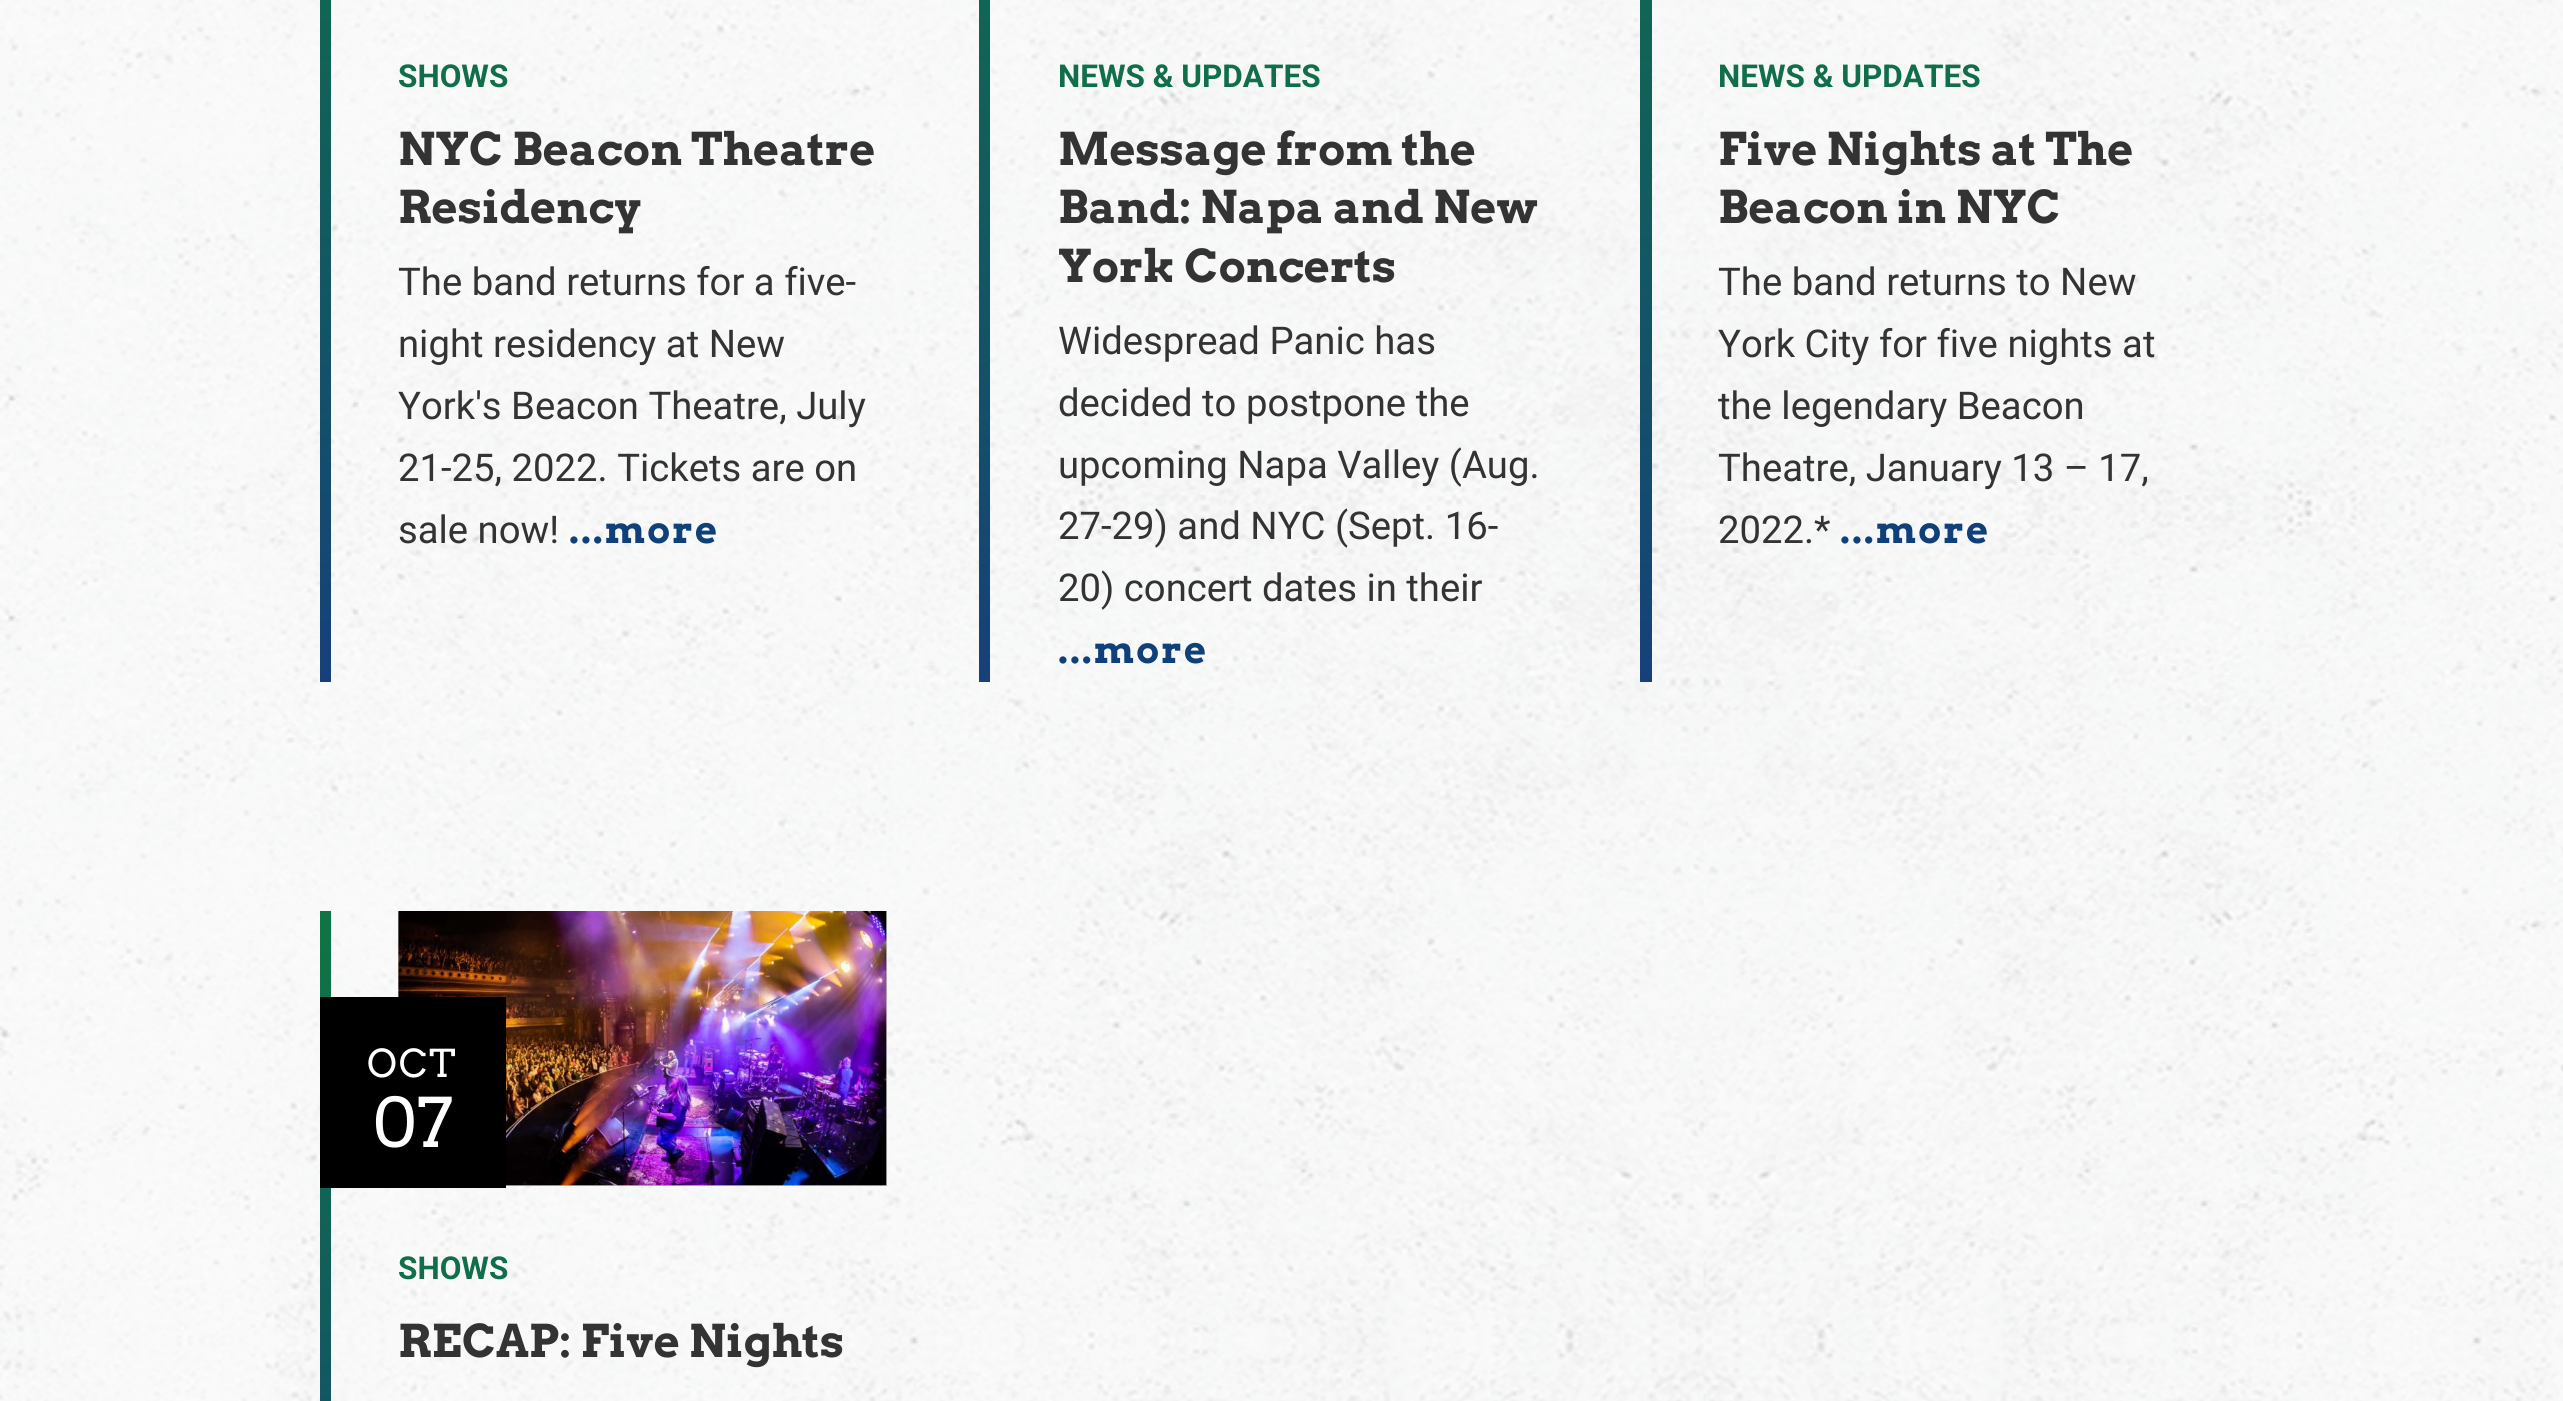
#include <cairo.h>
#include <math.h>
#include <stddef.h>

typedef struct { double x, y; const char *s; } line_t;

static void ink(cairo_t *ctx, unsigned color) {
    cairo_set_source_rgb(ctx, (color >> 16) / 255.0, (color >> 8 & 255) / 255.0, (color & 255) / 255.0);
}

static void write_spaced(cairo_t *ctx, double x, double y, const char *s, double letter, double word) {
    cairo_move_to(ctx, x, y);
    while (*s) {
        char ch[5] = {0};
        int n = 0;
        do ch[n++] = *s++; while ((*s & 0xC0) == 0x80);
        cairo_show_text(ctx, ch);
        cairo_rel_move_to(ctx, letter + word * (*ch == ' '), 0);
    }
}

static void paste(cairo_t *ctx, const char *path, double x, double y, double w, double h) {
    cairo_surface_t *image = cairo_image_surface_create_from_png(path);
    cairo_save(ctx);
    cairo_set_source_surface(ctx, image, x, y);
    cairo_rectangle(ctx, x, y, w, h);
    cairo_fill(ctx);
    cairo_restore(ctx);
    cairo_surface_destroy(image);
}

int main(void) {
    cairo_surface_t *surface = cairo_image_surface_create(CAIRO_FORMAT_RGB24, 2563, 1401);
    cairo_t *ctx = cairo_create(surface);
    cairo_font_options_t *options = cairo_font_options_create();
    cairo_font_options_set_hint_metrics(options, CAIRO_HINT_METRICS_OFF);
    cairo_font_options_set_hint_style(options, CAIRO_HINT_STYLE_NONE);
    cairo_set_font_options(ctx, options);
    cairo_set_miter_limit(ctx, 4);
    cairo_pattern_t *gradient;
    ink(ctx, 0xFFFFFF);
    cairo_paint(ctx);
    paste(ctx, "media/1.png", 0, 0, 2563, 1401);
    gradient = cairo_pattern_create_linear(325, -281, 325, 682);
    cairo_pattern_add_color_stop_rgba(gradient, 0, 0.059, 0.459, 0.263, 1);
    cairo_pattern_add_color_stop_rgba(gradient, 1, 0.086, 0.251, 0.478, 1);
    cairo_set_source(ctx, gradient);
    cairo_pattern_destroy(gradient);
    cairo_rectangle(ctx, 320, 0, 11, 682);
    cairo_fill(ctx);
    cairo_select_font_face(ctx, "Roboto", CAIRO_FONT_SLANT_NORMAL, CAIRO_FONT_WEIGHT_BOLD);
    cairo_set_font_size(ctx, 31.5);
    ink(ctx, 0x106F4A);
    cairo_move_to(ctx, 398, 87);
    cairo_show_text(ctx, "SHOWS");
    cairo_select_font_face(ctx, "Arvo", CAIRO_FONT_SLANT_NORMAL, CAIRO_FONT_WEIGHT_BOLD);
    cairo_set_font_size(ctx, 45);
    ink(ctx, 0x333333);
    cairo_move_to(ctx, 398, 165);
    cairo_show_text(ctx, "NYC Beacon Theatre");
    cairo_move_to(ctx, 398, 223);
    cairo_show_text(ctx, "Residency");
    cairo_select_font_face(ctx, "Roboto", CAIRO_FONT_SLANT_NORMAL, CAIRO_FONT_WEIGHT_NORMAL);
    cairo_set_font_size(ctx, 38.25);
    {
        static const line_t items[] = {
            {398, 295, "The band returns for a five-"},
            {398, 357, "night residency at New"},
            {398, 419, "York's Beacon Theatre, July"},
            {398, 481, "21-25, 2022. Tickets are on"},
            {398, 543, "sale now!"},
        };
        for (size_t i = 0; i < sizeof items / sizeof *items; i++) {
            cairo_move_to(ctx, items[i].x, items[i].y);
            cairo_show_text(ctx, items[i].s);
        }
    }
    cairo_select_font_face(ctx, "Arvo", CAIRO_FONT_SLANT_NORMAL, CAIRO_FONT_WEIGHT_BOLD);
    ink(ctx, 0x104079);
    write_spaced(ctx, 569, 543, "...more", 2, 0);
    gradient = cairo_pattern_create_linear(984, -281, 984, 682);
    cairo_pattern_add_color_stop_rgba(gradient, 0, 0.059, 0.459, 0.263, 1);
    cairo_pattern_add_color_stop_rgba(gradient, 1, 0.086, 0.251, 0.478, 1);
    cairo_set_source(ctx, gradient);
    cairo_pattern_destroy(gradient);
    cairo_rectangle(ctx, 979, 0, 11, 682);
    cairo_fill(ctx);
    cairo_select_font_face(ctx, "Roboto", CAIRO_FONT_SLANT_NORMAL, CAIRO_FONT_WEIGHT_BOLD);
    cairo_set_font_size(ctx, 31.5);
    ink(ctx, 0x106F4A);
    cairo_move_to(ctx, 1058, 87);
    cairo_show_text(ctx, "NEWS & UPDATES");
    cairo_select_font_face(ctx, "Arvo", CAIRO_FONT_SLANT_NORMAL, CAIRO_FONT_WEIGHT_BOLD);
    cairo_set_font_size(ctx, 45);
    ink(ctx, 0x333333);
    {
        static const line_t items[] = {
            {1058, 165, "Message from the"},
            {1058, 223, "Band: Napa and New"},
            {1058, 282, "York Concerts"},
        };
        for (size_t i = 0; i < sizeof items / sizeof *items; i++) {
            cairo_move_to(ctx, items[i].x, items[i].y);
            cairo_show_text(ctx, items[i].s);
        }
    }
    cairo_select_font_face(ctx, "Roboto", CAIRO_FONT_SLANT_NORMAL, CAIRO_FONT_WEIGHT_NORMAL);
    cairo_set_font_size(ctx, 38.25);
    {
        static const line_t items[] = {
            {1058, 354, "Widespread Panic has"},
            {1058, 416, "decided to postpone the"},
            {1058, 478, "upcoming Napa Valley (Aug."},
            {1058, 539, "27-29) and NYC (Sept. 16-"},
            {1058, 601, "20) concert dates in their"},
        };
        for (size_t i = 0; i < sizeof items / sizeof *items; i++) {
            cairo_move_to(ctx, items[i].x, items[i].y);
            cairo_show_text(ctx, items[i].s);
        }
    }
    cairo_select_font_face(ctx, "Arvo", CAIRO_FONT_SLANT_NORMAL, CAIRO_FONT_WEIGHT_BOLD);
    ink(ctx, 0x104079);
    write_spaced(ctx, 1058, 663, "...more", 2, 0);
    gradient = cairo_pattern_create_linear(1646, -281, 1646, 682);
    cairo_pattern_add_color_stop_rgba(gradient, 0, 0.059, 0.459, 0.263, 1);
    cairo_pattern_add_color_stop_rgba(gradient, 1, 0.086, 0.251, 0.478, 1);
    cairo_set_source(ctx, gradient);
    cairo_pattern_destroy(gradient);
    cairo_rectangle(ctx, 1640, 0, 12, 682);
    cairo_fill(ctx);
    cairo_select_font_face(ctx, "Roboto", CAIRO_FONT_SLANT_NORMAL, CAIRO_FONT_WEIGHT_BOLD);
    cairo_set_font_size(ctx, 31.5);
    ink(ctx, 0x106F4A);
    cairo_move_to(ctx, 1718, 87);
    cairo_show_text(ctx, "NEWS & UPDATES");
    cairo_select_font_face(ctx, "Arvo", CAIRO_FONT_SLANT_NORMAL, CAIRO_FONT_WEIGHT_BOLD);
    cairo_set_font_size(ctx, 45);
    ink(ctx, 0x333333);
    cairo_move_to(ctx, 1718, 165);
    cairo_show_text(ctx, "Five Nights at The");
    cairo_move_to(ctx, 1718, 223);
    cairo_show_text(ctx, "Beacon in NYC");
    cairo_select_font_face(ctx, "Roboto", CAIRO_FONT_SLANT_NORMAL, CAIRO_FONT_WEIGHT_NORMAL);
    cairo_set_font_size(ctx, 38.25);
    {
        static const line_t items[] = {
            {1718, 295, "The band returns to New"},
            {1718, 357, "York City for five nights at"},
            {1718, 419, "the legendary Beacon"},
            {1718, 481, "Theatre, January 13 – 17,"},
            {1718, 543, "2022.*"},
        };
        for (size_t i = 0; i < sizeof items / sizeof *items; i++) {
            cairo_move_to(ctx, items[i].x, items[i].y);
            cairo_show_text(ctx, items[i].s);
        }
    }
    cairo_select_font_face(ctx, "Arvo", CAIRO_FONT_SLANT_NORMAL, CAIRO_FONT_WEIGHT_BOLD);
    ink(ctx, 0x104079);
    write_spaced(ctx, 1840, 543, "...more", 2, 0);
    gradient = cairo_pattern_create_linear(325, 911, 325, 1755);
    cairo_pattern_add_color_stop_rgba(gradient, 0, 0.059, 0.459, 0.263, 1);
    cairo_pattern_add_color_stop_rgba(gradient, 1, 0.086, 0.251, 0.478, 1);
    cairo_set_source(ctx, gradient);
    cairo_pattern_destroy(gradient);
    cairo_rectangle(ctx, 320, 911, 11, 490);
    cairo_fill(ctx);
    cairo_rectangle(ctx, 399, 912, 487, 273);
    ink(ctx, 0xC1C1C1);
    cairo_stroke(ctx);
    paste(ctx, "media/2.png", 398, 911, 489, 275);
    ink(ctx, 0x000000);
    cairo_rectangle(ctx, 320, 997, 186, 191);
    cairo_fill(ctx);
    cairo_select_font_face(ctx, "Arvo", CAIRO_FONT_SLANT_NORMAL, CAIRO_FONT_WEIGHT_NORMAL);
    ink(ctx, 0xFFFFFF);
    write_spaced(ctx, 367, 1077, "OCT", 2, 0);
    cairo_set_font_size(ctx, 68);
    cairo_move_to(ctx, 373, 1147);
    cairo_show_text(ctx, "07");
    cairo_select_font_face(ctx, "Roboto", CAIRO_FONT_SLANT_NORMAL, CAIRO_FONT_WEIGHT_BOLD);
    cairo_set_font_size(ctx, 31.5);
    ink(ctx, 0x106F4A);
    cairo_move_to(ctx, 398, 1279);
    cairo_show_text(ctx, "SHOWS");
    cairo_select_font_face(ctx, "Arvo", CAIRO_FONT_SLANT_NORMAL, CAIRO_FONT_WEIGHT_BOLD);
    cairo_set_font_size(ctx, 45);
    ink(ctx, 0x333333);
    cairo_move_to(ctx, 398, 1357);
    cairo_show_text(ctx, "RECAP: Five Nights");
    cairo_surface_write_to_png(surface, "image.png");
    cairo_font_options_destroy(options);
    cairo_destroy(ctx);
    cairo_surface_destroy(surface);
    return 0;
}
